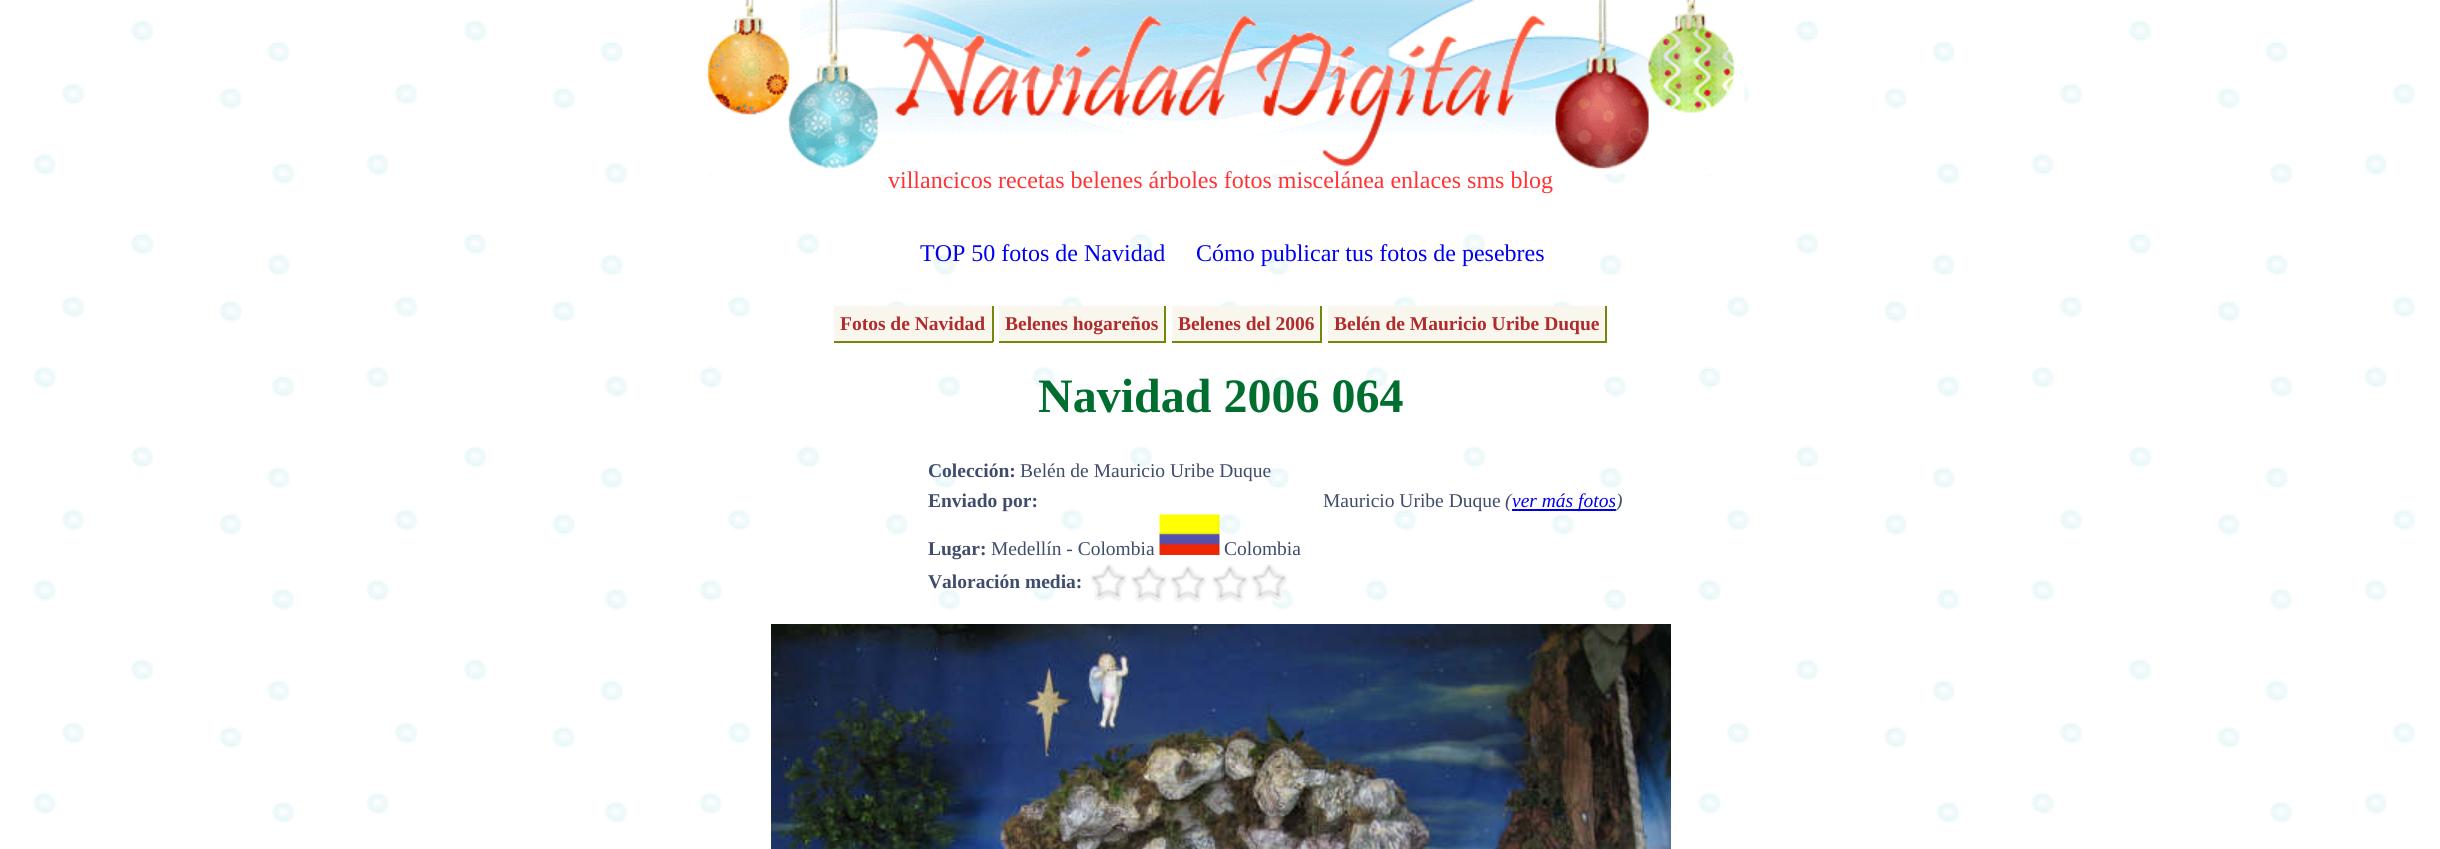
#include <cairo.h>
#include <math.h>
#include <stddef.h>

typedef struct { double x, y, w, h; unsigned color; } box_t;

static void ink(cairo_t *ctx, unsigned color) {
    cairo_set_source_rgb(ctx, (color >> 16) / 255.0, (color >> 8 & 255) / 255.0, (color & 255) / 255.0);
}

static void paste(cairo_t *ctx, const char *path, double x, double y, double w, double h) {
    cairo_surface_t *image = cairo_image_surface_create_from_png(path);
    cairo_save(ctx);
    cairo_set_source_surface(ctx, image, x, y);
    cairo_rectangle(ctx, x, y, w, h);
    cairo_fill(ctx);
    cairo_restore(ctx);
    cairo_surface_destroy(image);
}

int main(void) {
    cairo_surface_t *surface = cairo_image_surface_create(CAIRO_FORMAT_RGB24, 2440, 849);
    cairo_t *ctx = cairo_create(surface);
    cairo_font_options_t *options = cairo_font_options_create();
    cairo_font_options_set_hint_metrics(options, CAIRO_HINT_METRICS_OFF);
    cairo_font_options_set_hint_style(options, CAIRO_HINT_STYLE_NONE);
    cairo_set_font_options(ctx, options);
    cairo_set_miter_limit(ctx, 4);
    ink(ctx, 0xFFFFFF);
    cairo_paint(ctx);
    paste(ctx, "media/1.png", 33, 20, 2382, 803);
    paste(ctx, "media/2.png", 699, 0, 1046, 174);
    paste(ctx, "media/3.png", 895, 15, 650, 152);
    cairo_select_font_face(ctx, "Liberation Serif", CAIRO_FONT_SLANT_NORMAL, CAIRO_FONT_WEIGHT_NORMAL);
    cairo_set_font_size(ctx, 24);
    ink(ctx, 0xFF3333);
    cairo_move_to(ctx, 888, 188);
    cairo_show_text(ctx, "villancicos recetas belenes árboles fotos miscelánea enlaces sms blog");
    ink(ctx, 0x0000EE);
    cairo_move_to(ctx, 920, 261);
    cairo_show_text(ctx, "TOP 50 fotos de Navidad");
    cairo_move_to(ctx, 1196, 261);
    cairo_show_text(ctx, "Cómo publicar tus fotos de pesebres");
    ink(ctx, 0xF9F7ED);
    cairo_rectangle(ctx, 834, 306, 158, 35);
    cairo_fill(ctx);
    cairo_select_font_face(ctx, "Liberation Serif", CAIRO_FONT_SLANT_NORMAL, CAIRO_FONT_WEIGHT_BOLD);
    cairo_set_font_size(ctx, 19.5);
    ink(ctx, 0xB02B2C);
    cairo_move_to(ctx, 840, 330);
    cairo_show_text(ctx, "Fotos de Navidad");
    {
        static const box_t items[] = {
            {992, 306, 2, 36, 0x73880A},
            {834, 341, 159, 2, 0x73880A},
            {999, 306, 165, 35, 0xF9F7ED},
        };
        for (size_t i = 0; i < sizeof items / sizeof *items; i++) {
            ink(ctx, items[i].color);
            cairo_rectangle(ctx, items[i].x, items[i].y, items[i].w, items[i].h);
            cairo_fill(ctx);
        }
    }
    ink(ctx, 0xB02B2C);
    cairo_move_to(ctx, 1005, 330);
    cairo_show_text(ctx, "Belenes hogareños");
    {
        static const box_t items[] = {
            {1164, 306, 2, 36, 0x73880A},
            {999, 341, 167, 2, 0x73880A},
            {1172, 306, 148, 35, 0xF9F7ED},
        };
        for (size_t i = 0; i < sizeof items / sizeof *items; i++) {
            ink(ctx, items[i].color);
            cairo_rectangle(ctx, items[i].x, items[i].y, items[i].w, items[i].h);
            cairo_fill(ctx);
        }
    }
    ink(ctx, 0xB02B2C);
    cairo_move_to(ctx, 1178, 330);
    cairo_show_text(ctx, "Belenes del 2006");
    {
        static const box_t items[] = {
            {1320, 306, 2, 36, 0x73880A},
            {1172, 341, 150, 2, 0x73880A},
            {1328, 306, 277, 35, 0xF9F7ED},
        };
        for (size_t i = 0; i < sizeof items / sizeof *items; i++) {
            ink(ctx, items[i].color);
            cairo_rectangle(ctx, items[i].x, items[i].y, items[i].w, items[i].h);
            cairo_fill(ctx);
        }
    }
    ink(ctx, 0xB02B2C);
    cairo_move_to(ctx, 1334, 330);
    cairo_show_text(ctx, "Belén de Mauricio Uribe Duque");
    ink(ctx, 0x73880A);
    cairo_rectangle(ctx, 1605, 306, 2, 36);
    cairo_fill(ctx);
    cairo_rectangle(ctx, 1328, 341, 279, 2);
    cairo_fill(ctx);
    cairo_set_font_size(ctx, 48);
    ink(ctx, 0x006E2E);
    cairo_move_to(ctx, 1038, 412);
    cairo_show_text(ctx, "Navidad 2006 064");
    cairo_set_font_size(ctx, 19.5);
    ink(ctx, 0x3F4C6B);
    cairo_move_to(ctx, 928, 477);
    cairo_show_text(ctx, "Colección:");
    cairo_select_font_face(ctx, "Liberation Serif", CAIRO_FONT_SLANT_NORMAL, CAIRO_FONT_WEIGHT_NORMAL);
    cairo_move_to(ctx, 1020, 477);
    cairo_show_text(ctx, "Belén de Mauricio Uribe Duque");
    cairo_select_font_face(ctx, "Liberation Serif", CAIRO_FONT_SLANT_NORMAL, CAIRO_FONT_WEIGHT_BOLD);
    cairo_move_to(ctx, 928, 507);
    cairo_show_text(ctx, "Enviado por:");
    cairo_select_font_face(ctx, "Liberation Serif", CAIRO_FONT_SLANT_NORMAL, CAIRO_FONT_WEIGHT_NORMAL);
    cairo_move_to(ctx, 1323, 507);
    cairo_show_text(ctx, "Mauricio Uribe Duque");
    cairo_select_font_face(ctx, "Liberation Serif", CAIRO_FONT_SLANT_ITALIC, CAIRO_FONT_WEIGHT_NORMAL);
    cairo_move_to(ctx, 1505, 507);
    cairo_show_text(ctx, "(");
    ink(ctx, 0x0000EE);
    cairo_rectangle(ctx, 1512, 509, 104, 2);
    cairo_fill(ctx);
    cairo_move_to(ctx, 1512, 507);
    cairo_show_text(ctx, "ver más fotos");
    ink(ctx, 0x3F4C6B);
    cairo_move_to(ctx, 1616, 507);
    cairo_show_text(ctx, ")");
    cairo_select_font_face(ctx, "Liberation Serif", CAIRO_FONT_SLANT_NORMAL, CAIRO_FONT_WEIGHT_BOLD);
    cairo_move_to(ctx, 928, 555);
    cairo_show_text(ctx, "Lugar:");
    cairo_select_font_face(ctx, "Liberation Serif", CAIRO_FONT_SLANT_NORMAL, CAIRO_FONT_WEIGHT_NORMAL);
    cairo_move_to(ctx, 991, 555);
    cairo_show_text(ctx, "Medellín - Colombia");
    paste(ctx, "media/4.png", 1159, 514, 61, 41);
    cairo_move_to(ctx, 1224, 555);
    cairo_show_text(ctx, "Colombia");
    cairo_select_font_face(ctx, "Liberation Serif", CAIRO_FONT_SLANT_NORMAL, CAIRO_FONT_WEIGHT_BOLD);
    cairo_move_to(ctx, 928, 588);
    cairo_show_text(ctx, "Valoración media:");
    paste(ctx, "media/5.png", 1089, 564, 198, 39);
    paste(ctx, "media/6.png", 771, 624, 900, 225);
    cairo_surface_write_to_png(surface, "image.png");
    cairo_font_options_destroy(options);
    cairo_destroy(ctx);
    cairo_surface_destroy(surface);
    return 0;
}
